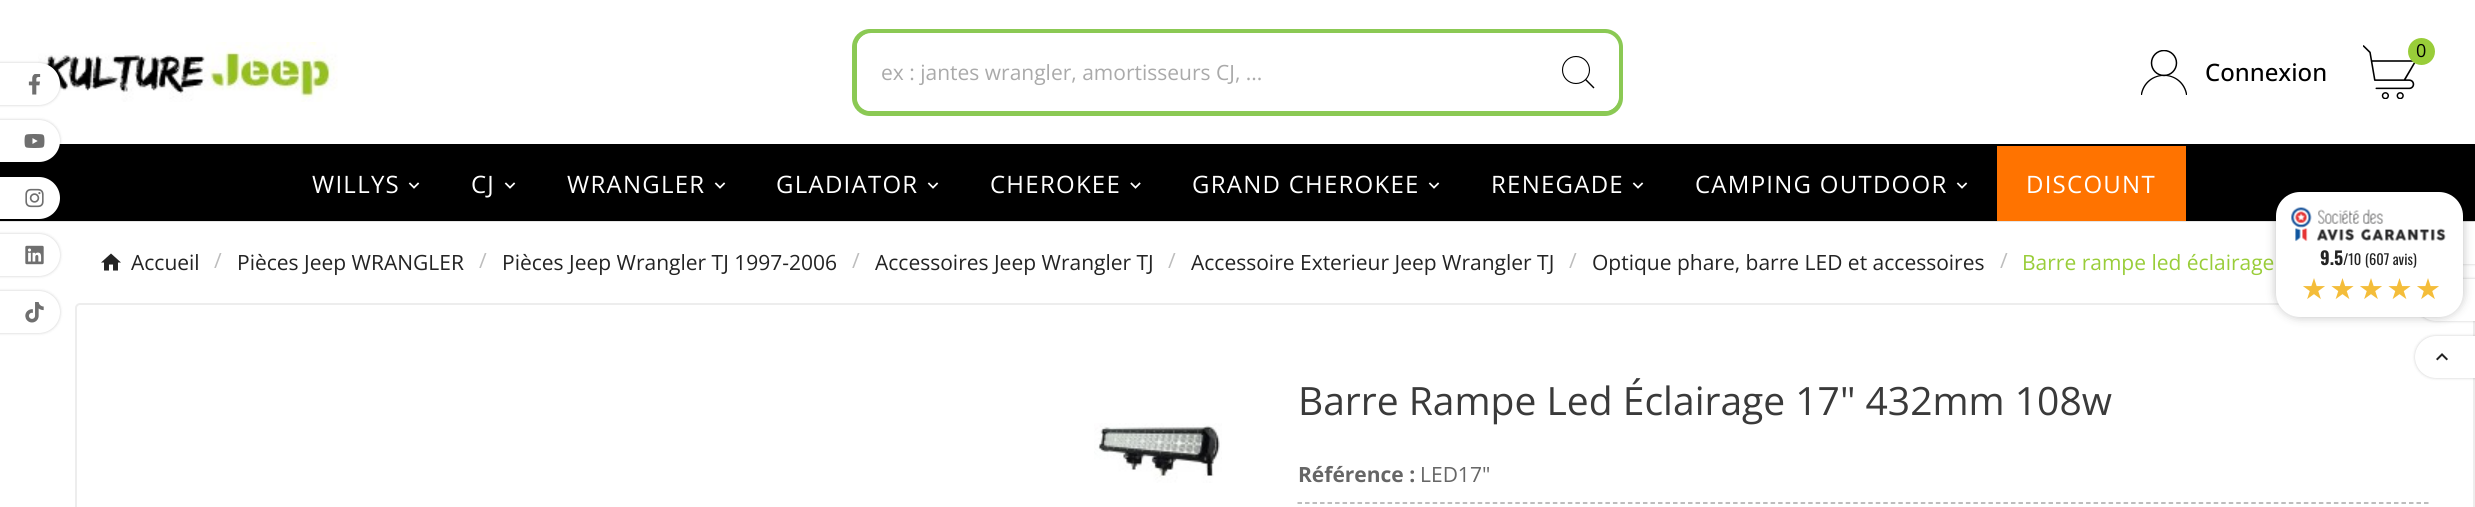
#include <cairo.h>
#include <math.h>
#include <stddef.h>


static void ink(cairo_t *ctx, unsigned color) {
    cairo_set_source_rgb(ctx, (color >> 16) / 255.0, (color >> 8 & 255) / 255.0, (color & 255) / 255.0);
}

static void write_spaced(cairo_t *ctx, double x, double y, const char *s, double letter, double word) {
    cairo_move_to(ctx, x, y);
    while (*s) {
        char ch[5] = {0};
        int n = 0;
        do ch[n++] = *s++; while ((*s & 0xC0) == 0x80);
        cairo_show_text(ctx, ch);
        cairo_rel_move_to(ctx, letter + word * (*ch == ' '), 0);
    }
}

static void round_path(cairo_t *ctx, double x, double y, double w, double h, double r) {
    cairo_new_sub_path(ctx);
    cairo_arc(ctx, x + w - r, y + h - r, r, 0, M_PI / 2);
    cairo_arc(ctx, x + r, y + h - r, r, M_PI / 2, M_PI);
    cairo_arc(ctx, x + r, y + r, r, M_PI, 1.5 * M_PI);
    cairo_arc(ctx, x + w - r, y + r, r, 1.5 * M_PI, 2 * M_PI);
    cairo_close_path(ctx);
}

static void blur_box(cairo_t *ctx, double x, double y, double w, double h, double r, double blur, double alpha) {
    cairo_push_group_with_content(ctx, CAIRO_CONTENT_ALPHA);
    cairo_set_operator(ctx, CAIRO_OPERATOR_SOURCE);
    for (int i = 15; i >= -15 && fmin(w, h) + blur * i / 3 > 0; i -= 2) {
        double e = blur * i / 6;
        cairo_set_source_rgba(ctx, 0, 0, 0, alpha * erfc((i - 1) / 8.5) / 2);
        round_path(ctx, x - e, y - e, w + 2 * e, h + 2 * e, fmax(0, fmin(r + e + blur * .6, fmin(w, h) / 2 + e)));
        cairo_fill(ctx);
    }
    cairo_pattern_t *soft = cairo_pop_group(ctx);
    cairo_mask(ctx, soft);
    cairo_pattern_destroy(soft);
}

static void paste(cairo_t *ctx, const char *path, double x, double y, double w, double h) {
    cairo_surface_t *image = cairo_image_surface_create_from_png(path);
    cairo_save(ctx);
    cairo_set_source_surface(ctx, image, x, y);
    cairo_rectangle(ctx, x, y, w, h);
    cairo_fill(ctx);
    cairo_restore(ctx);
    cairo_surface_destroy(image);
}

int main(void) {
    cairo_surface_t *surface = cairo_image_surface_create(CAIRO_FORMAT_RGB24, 2475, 507);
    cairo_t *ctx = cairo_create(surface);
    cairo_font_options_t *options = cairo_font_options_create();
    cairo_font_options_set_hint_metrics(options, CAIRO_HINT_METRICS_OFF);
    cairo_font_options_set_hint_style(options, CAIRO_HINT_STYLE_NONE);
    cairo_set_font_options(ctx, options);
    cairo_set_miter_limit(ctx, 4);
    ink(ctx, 0xFFFFFF);
    cairo_paint(ctx);
    ink(ctx, 0xE5E5E5);
    cairo_rectangle(ctx, 0, 221, 2475, 1);
    cairo_fill(ctx);
    paste(ctx, "media/1.png", 38, 42, 300, 60);
    round_path(ctx, 854.5, 31.5, 766, 82, 15.5);
    ink(ctx, 0x8BC954);
    cairo_set_line_width(ctx, 5);
    cairo_stroke(ctx);
    ink(ctx, 0xFFFFFF);
    cairo_new_path(ctx);
    cairo_move_to(ctx, 871, 33);
    cairo_line_to(ctx, 1538, 33);
    cairo_line_to(ctx, 1538, 111);
    cairo_line_to(ctx, 871, 111);
    cairo_curve_to(ctx, 863.5, 111, 857, 104.5, 857, 97);
    cairo_line_to(ctx, 857, 47);
    cairo_curve_to(ctx, 857, 39.5, 863.5, 33, 871, 33);
    cairo_close_path(ctx);
    cairo_fill(ctx);
    cairo_select_font_face(ctx, "Open Sans", CAIRO_FONT_SLANT_NORMAL, CAIRO_FONT_WEIGHT_NORMAL);
    cairo_set_font_size(ctx, 21);
    ink(ctx, 0xAAAAAA);
    cairo_move_to(ctx, 881, 80);
    cairo_show_text(ctx, "ex : jantes wrangler, amortisseurs CJ, ...");
    ink(ctx, 0xFFFFFF);
    cairo_new_path(ctx);
    cairo_move_to(ctx, 1538, 33);
    cairo_line_to(ctx, 1605, 33);
    cairo_curve_to(ctx, 1612.5, 33, 1619, 39.5, 1619, 47);
    cairo_line_to(ctx, 1619, 97);
    cairo_curve_to(ctx, 1619, 104.5, 1612.5, 111, 1605, 111);
    cairo_line_to(ctx, 1538, 111);
    cairo_close_path(ctx);
    cairo_fill(ctx);
    ink(ctx, 0x000000);
    cairo_new_path(ctx);
    cairo_move_to(ctx, 1593.5, 88.5);
    cairo_line_to(ctx, 1585, 80);
    cairo_line_to(ctx, 1586, 79);
    cairo_line_to(ctx, 1594.5, 87.5);
    cairo_close_path(ctx);
    cairo_fill(ctx);
    cairo_arc(ctx, 1576, 70, 13.5, 0, 2 * M_PI);
    cairo_set_line_width(ctx, 1.1);
    cairo_stroke(ctx);
    paste(ctx, "media/2.png", 2363, 45, 53, 54);
    ink(ctx, 0x99CD39);
    cairo_arc(ctx, 2421.5, 51.5, 13.5, 0, 2 * M_PI);
    cairo_fill(ctx);
    cairo_set_font_size(ctx, 18);
    ink(ctx, 0x000000);
    cairo_move_to(ctx, 2416, 57);
    cairo_show_text(ctx, "0");
    cairo_save(ctx);
    cairo_rectangle(ctx, 2141, 50, 46, 45);
    cairo_clip(ctx);
    cairo_new_path(ctx);
    cairo_move_to(ctx, 2164, 75.5);
    cairo_curve_to(ctx, 2175.5, 75.5, 2185, 84, 2186.5, 95.5);
    cairo_line_to(ctx, 2187, 95.5);
    cairo_curve_to(ctx, 2183, 68.5, 2145, 68.5, 2141, 95.5);
    cairo_line_to(ctx, 2141.5, 95.5);
    cairo_curve_to(ctx, 2143, 84, 2152.5, 75.5, 2164, 75.5);
    cairo_close_path(ctx);
    cairo_set_line_width(ctx, 0.9);
    cairo_stroke(ctx);
    cairo_arc(ctx, 2164, 63, 12.5, 0, 2 * M_PI);
    cairo_set_line_width(ctx, 1.5);
    cairo_stroke(ctx);
    cairo_restore(ctx);
    cairo_select_font_face(ctx, "Open Sans Medium", CAIRO_FONT_SLANT_NORMAL, CAIRO_FONT_WEIGHT_NORMAL);
    cairo_set_font_size(ctx, 24);
    cairo_move_to(ctx, 2205, 81);
    cairo_show_text(ctx, "Connexion");
    cairo_rectangle(ctx, 0, 144, 2475, 77);
    cairo_fill(ctx);
    cairo_select_font_face(ctx, "Open Sans", CAIRO_FONT_SLANT_NORMAL, CAIRO_FONT_WEIGHT_NORMAL);
    ink(ctx, 0xFFFFFF);
    write_spaced(ctx, 312, 193, "WILLYS", 1.25, 0);
    paste(ctx, "media/3.png", 408, 182, 12, 7);
    write_spaced(ctx, 471, 193, "CJ", 1.25, 0);
    paste(ctx, "media/3.png", 504, 182, 12, 7);
    write_spaced(ctx, 567, 193, "WRANGLER", 1.25, 0);
    paste(ctx, "media/3.png", 714, 182, 12, 7);
    write_spaced(ctx, 776, 193, "GLADIATOR", 1.25, 0);
    paste(ctx, "media/3.png", 927, 182, 12, 7);
    write_spaced(ctx, 990, 193, "CHEROKEE", 1.25, 0);
    paste(ctx, "media/4.png", 1130, 182, 11, 7);
    write_spaced(ctx, 1192, 193, "GRAND CHEROKEE", 1.25, 0);
    paste(ctx, "media/3.png", 1428, 182, 12, 7);
    write_spaced(ctx, 1491, 193, "RENEGADE", 1.25, 0);
    paste(ctx, "media/3.png", 1632, 182, 12, 7);
    write_spaced(ctx, 1695, 193, "CAMPING OUTDOOR", 1.25, 0);
    paste(ctx, "media/3.png", 1956, 182, 12, 7);
    ink(ctx, 0xFF7300);
    cairo_rectangle(ctx, 1997, 146, 189, 75);
    cairo_fill(ctx);
    ink(ctx, 0xFFFFFF);
    write_spaced(ctx, 2026, 193, "DISCOUNT", 1.25, 0);
    ink(ctx, 0x000000);
    blur_box(ctx, -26, 63, 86, 42, 21, 1.5, 0.2);
    ink(ctx, 0xFFFFFF);
    cairo_new_path(ctx);
    cairo_move_to(ctx, -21, 63);
    cairo_line_to(ctx, 39, 63);
    cairo_curve_to(ctx, 50.5, 63, 60, 72.5, 60, 84);
    cairo_curve_to(ctx, 60, 95.5, 50.5, 105, 39, 105);
    cairo_line_to(ctx, -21, 105);
    cairo_close_path(ctx);
    cairo_fill(ctx);
    paste(ctx, "media/5.png", 28, 74, 13, 21);
    ink(ctx, 0x000000);
    blur_box(ctx, -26, 120, 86, 42, 21, 1.5, 0.2);
    ink(ctx, 0xFFFFFF);
    cairo_new_path(ctx);
    cairo_move_to(ctx, -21, 120);
    cairo_line_to(ctx, 39, 120);
    cairo_curve_to(ctx, 50.5, 120, 60, 129.5, 60, 141);
    cairo_curve_to(ctx, 60, 152.5, 50.5, 162, 39, 162);
    cairo_line_to(ctx, -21, 162);
    cairo_close_path(ctx);
    cairo_fill(ctx);
    paste(ctx, "media/6.png", 24, 134, 21, 14);
    cairo_new_path(ctx);
    cairo_move_to(ctx, -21, 177);
    cairo_line_to(ctx, 39, 177);
    cairo_curve_to(ctx, 50.5, 177, 60, 186.5, 60, 198);
    cairo_curve_to(ctx, 60, 209.5, 50.5, 219, 39, 219);
    cairo_line_to(ctx, -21, 219);
    cairo_close_path(ctx);
    cairo_fill(ctx);
    paste(ctx, "media/7.png", 25, 188, 19, 20);
    ink(ctx, 0x000000);
    blur_box(ctx, -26, 234, 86, 42, 21, 1.5, 0.2);
    ink(ctx, 0xFFFFFF);
    cairo_new_path(ctx);
    cairo_move_to(ctx, -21, 234);
    cairo_line_to(ctx, 39, 234);
    cairo_curve_to(ctx, 50.5, 234, 60, 243.5, 60, 255);
    cairo_curve_to(ctx, 60, 266.5, 50.5, 276, 39, 276);
    cairo_line_to(ctx, -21, 276);
    cairo_close_path(ctx);
    cairo_fill(ctx);
    paste(ctx, "media/8.png", 25, 245, 19, 20);
    ink(ctx, 0x000000);
    blur_box(ctx, -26, 291, 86, 42, 21, 1.5, 0.2);
    ink(ctx, 0xFFFFFF);
    cairo_new_path(ctx);
    cairo_move_to(ctx, -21, 291);
    cairo_line_to(ctx, 39, 291);
    cairo_curve_to(ctx, 50.5, 291, 60, 300.5, 60, 312);
    cairo_curve_to(ctx, 60, 323.5, 50.5, 333, 39, 333);
    cairo_line_to(ctx, -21, 333);
    cairo_close_path(ctx);
    cairo_fill(ctx);
    paste(ctx, "media/9.png", 25, 302, 19, 21);
    ink(ctx, 0x000000);
    blur_box(ctx, 2415, 222, 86, 42, 21, 1.5, 0.2);
    ink(ctx, 0xFFFFFF);
    cairo_rectangle(ctx, 2463, 222, 12, 42);
    cairo_fill(ctx);
    round_path(ctx, 76, 304, 2398, 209, 4);
    ink(ctx, 0xEDEDED);
    cairo_set_line_width(ctx, 2);
    cairo_stroke(ctx);
    ink(ctx, 0x000000);
    blur_box(ctx, 2415, 279, 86, 42, 21, 1.5, 0.2);
    ink(ctx, 0xFFFFFF);
    cairo_new_path(ctx);
    cairo_move_to(ctx, 2436, 279);
    cairo_line_to(ctx, 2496, 279);
    cairo_line_to(ctx, 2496, 321);
    cairo_line_to(ctx, 2436, 321);
    cairo_curve_to(ctx, 2424.5, 321, 2415, 311.5, 2415, 300);
    cairo_curve_to(ctx, 2415, 288.5, 2424.5, 279, 2436, 279);
    cairo_close_path(ctx);
    cairo_fill(ctx);
    ink(ctx, 0x000000);
    blur_box(ctx, 2415, 336, 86, 42, 21, 1.5, 0.2);
    ink(ctx, 0xFFFFFF);
    cairo_new_path(ctx);
    cairo_move_to(ctx, 2436, 336);
    cairo_line_to(ctx, 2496, 336);
    cairo_line_to(ctx, 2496, 378);
    cairo_line_to(ctx, 2436, 378);
    cairo_curve_to(ctx, 2424.5, 378, 2415, 368.5, 2415, 357);
    cairo_curve_to(ctx, 2415, 345.5, 2424.5, 336, 2436, 336);
    cairo_close_path(ctx);
    cairo_fill(ctx);
    paste(ctx, "media/10.png", 2436, 353, 12, 8);
    paste(ctx, "media/11.png", 101, 253, 20, 18);
    cairo_set_font_size(ctx, 21);
    ink(ctx, 0x232323);
    cairo_move_to(ctx, 131, 270);
    cairo_show_text(ctx, "Accueil");
    ink(ctx, 0xBDBDBD);
    cairo_move_to(ctx, 214, 268);
    cairo_show_text(ctx, "/");
    ink(ctx, 0x232323);
    cairo_move_to(ctx, 237, 270);
    cairo_show_text(ctx, "Pièces Jeep WRANGLER");
    ink(ctx, 0xBDBDBD);
    cairo_move_to(ctx, 479, 268);
    cairo_show_text(ctx, "/");
    ink(ctx, 0x232323);
    cairo_move_to(ctx, 502, 270);
    cairo_show_text(ctx, "Pièces Jeep Wrangler TJ 1997-2006");
    ink(ctx, 0xBDBDBD);
    cairo_move_to(ctx, 852, 268);
    cairo_show_text(ctx, "/");
    ink(ctx, 0x232323);
    cairo_move_to(ctx, 875, 270);
    cairo_show_text(ctx, "Accessoires Jeep Wrangler TJ");
    ink(ctx, 0xBDBDBD);
    cairo_move_to(ctx, 1168, 268);
    cairo_show_text(ctx, "/");
    ink(ctx, 0x232323);
    cairo_move_to(ctx, 1191, 270);
    cairo_show_text(ctx, "Accessoire Exterieur Jeep Wrangler TJ");
    ink(ctx, 0xBDBDBD);
    cairo_move_to(ctx, 1569, 268);
    cairo_show_text(ctx, "/");
    ink(ctx, 0x232323);
    cairo_move_to(ctx, 1592, 270);
    cairo_show_text(ctx, "Optique phare, barre LED et accessoires");
    ink(ctx, 0xBDBDBD);
    cairo_move_to(ctx, 2000, 268);
    cairo_show_text(ctx, "/");
    ink(ctx, 0x99CD39);
    cairo_move_to(ctx, 2022, 270);
    cairo_show_text(ctx, "Barre rampe led éclairage");
    paste(ctx, "media/12.png", 1094, 423, 128, 60);
    cairo_set_font_size(ctx, 39);
    ink(ctx, 0x3A3A3A);
    cairo_move_to(ctx, 1298, 415);
    cairo_show_text(ctx, "Barre Rampe Led Éclairage 17\" 432mm 108w");
    cairo_new_path(ctx);
    cairo_move_to(ctx, 1297.5, 503);
    cairo_line_to(ctx, 2428.5, 503);
    ink(ctx, 0xA7A7A7);
    cairo_set_line_width(ctx, 1.5);
    cairo_set_dash(ctx, (double[]){4.5, 3.01}, 2, 0);
    cairo_stroke(ctx);
    cairo_select_font_face(ctx, "Open Sans", CAIRO_FONT_SLANT_NORMAL, CAIRO_FONT_WEIGHT_BOLD);
    cairo_set_font_size(ctx, 21);
    ink(ctx, 0x666666);
    cairo_move_to(ctx, 1298, 482);
    cairo_show_text(ctx, "Référence :");
    cairo_select_font_face(ctx, "Open Sans", CAIRO_FONT_SLANT_NORMAL, CAIRO_FONT_WEIGHT_NORMAL);
    cairo_move_to(ctx, 1420, 482);
    cairo_show_text(ctx, "LED17\"");
    ink(ctx, 0x000000);
    blur_box(ctx, 2276, 192, 187, 125, 24, 5, 0.25);
    ink(ctx, 0xFFFFFF);
    round_path(ctx, 2276, 192, 187, 125, 24);
    cairo_fill(ctx);
    paste(ctx, "media/13.png", 2291, 207, 155, 35);
    cairo_select_font_face(ctx, "Oswald", CAIRO_FONT_SLANT_NORMAL, CAIRO_FONT_WEIGHT_BOLD);
    cairo_set_font_size(ctx, 18);
    ink(ctx, 0x232323);
    cairo_move_to(ctx, 2320, 265);
    cairo_show_text(ctx, "9.5");
    cairo_select_font_face(ctx, "Oswald", CAIRO_FONT_SLANT_NORMAL, CAIRO_FONT_WEIGHT_NORMAL);
    cairo_set_font_size(ctx, 14.5);
    cairo_move_to(ctx, 2343, 265);
    cairo_show_text(ctx, "/10 (607 avis)");
    cairo_select_font_face(ctx, "DejaVu Sans", CAIRO_FONT_SLANT_NORMAL, CAIRO_FONT_WEIGHT_NORMAL);
    cairo_set_font_size(ctx, 29);
    ink(ctx, 0xF4BD3A);
    write_spaced(ctx, 2301, 299, "★★★★★", 2.5, 0);
    cairo_surface_write_to_png(surface, "image.png");
    cairo_font_options_destroy(options);
    cairo_destroy(ctx);
    cairo_surface_destroy(surface);
    return 0;
}
